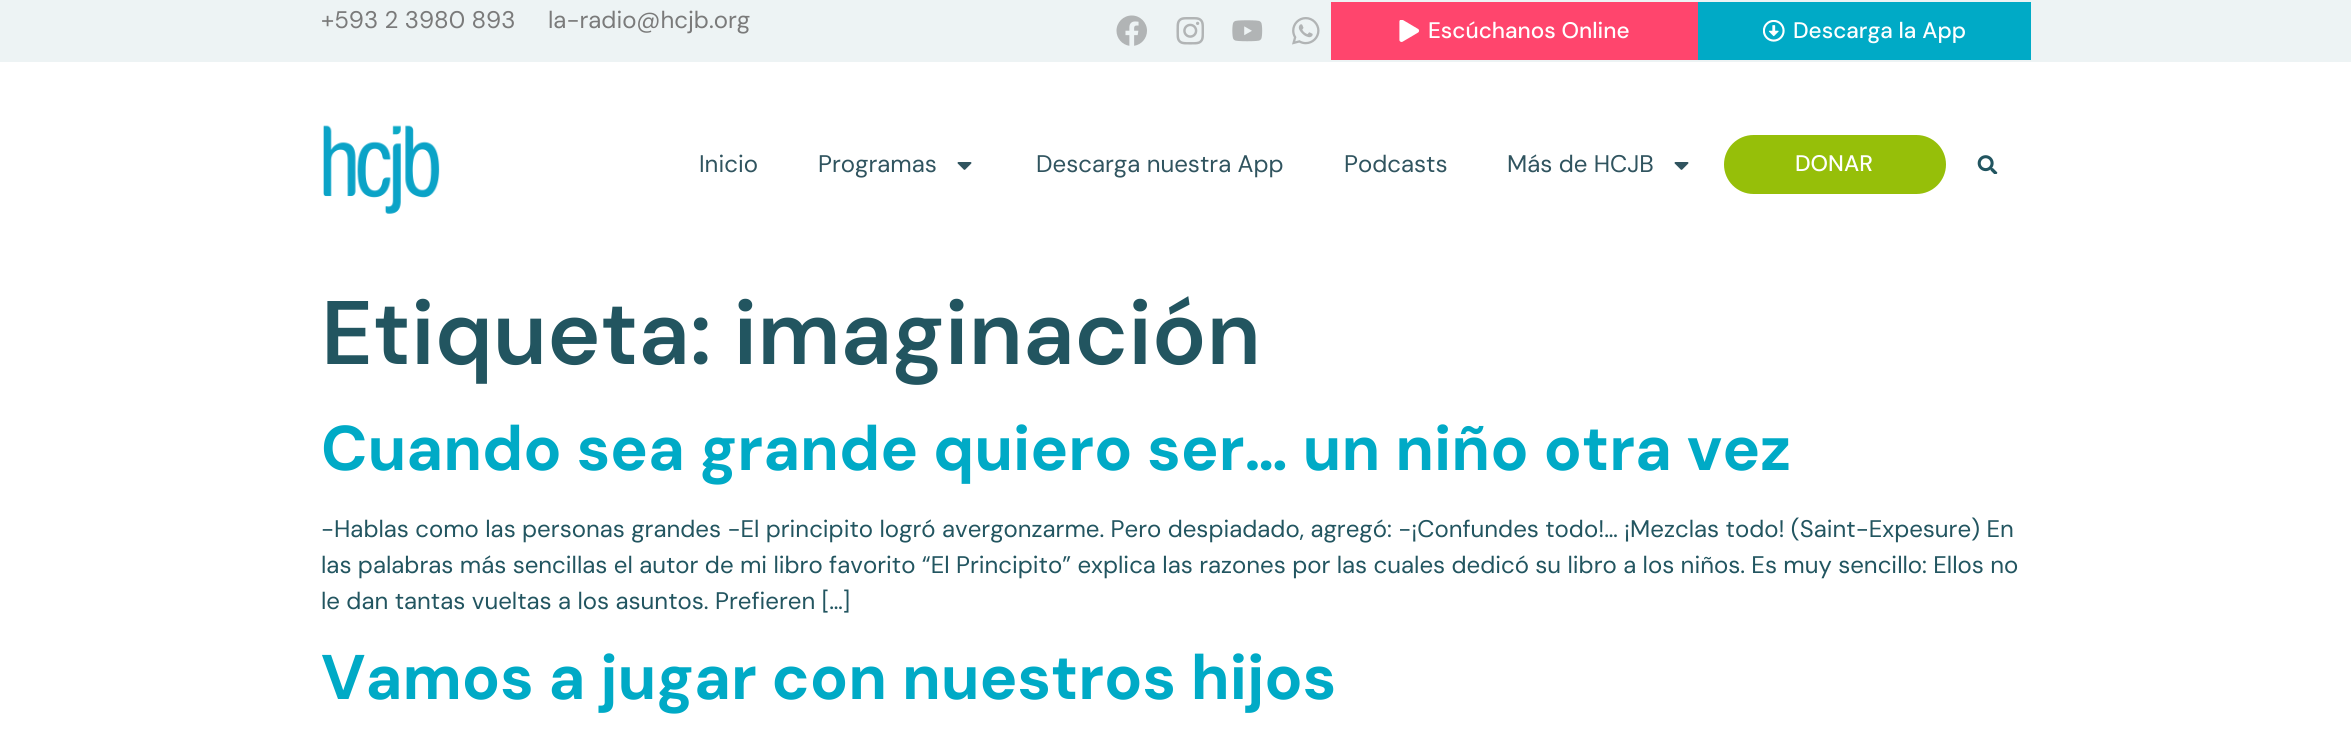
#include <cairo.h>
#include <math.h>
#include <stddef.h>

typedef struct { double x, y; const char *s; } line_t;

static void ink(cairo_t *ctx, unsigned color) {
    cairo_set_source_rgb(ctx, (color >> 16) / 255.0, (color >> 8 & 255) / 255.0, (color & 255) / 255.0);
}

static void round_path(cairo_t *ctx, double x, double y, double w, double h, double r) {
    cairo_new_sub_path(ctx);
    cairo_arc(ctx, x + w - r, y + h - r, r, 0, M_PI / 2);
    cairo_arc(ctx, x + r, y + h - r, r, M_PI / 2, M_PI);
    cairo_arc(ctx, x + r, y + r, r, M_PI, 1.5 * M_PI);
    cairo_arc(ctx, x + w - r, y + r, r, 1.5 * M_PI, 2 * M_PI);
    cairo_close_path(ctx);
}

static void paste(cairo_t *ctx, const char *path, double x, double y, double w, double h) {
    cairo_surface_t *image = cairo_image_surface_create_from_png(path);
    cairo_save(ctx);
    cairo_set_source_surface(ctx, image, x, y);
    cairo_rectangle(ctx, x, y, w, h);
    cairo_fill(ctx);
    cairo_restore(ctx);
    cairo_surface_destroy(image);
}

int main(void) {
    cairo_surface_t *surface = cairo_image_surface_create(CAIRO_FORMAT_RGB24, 2351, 747);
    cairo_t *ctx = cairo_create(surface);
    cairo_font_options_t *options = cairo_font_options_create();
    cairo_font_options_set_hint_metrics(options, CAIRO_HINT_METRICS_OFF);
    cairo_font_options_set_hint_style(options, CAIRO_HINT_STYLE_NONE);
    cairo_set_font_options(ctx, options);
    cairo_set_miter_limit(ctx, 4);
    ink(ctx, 0xFFFFFF);
    cairo_paint(ctx);
    ink(ctx, 0xEDF3F4);
    cairo_rectangle(ctx, 0, 0, 2351, 62);
    cairo_fill(ctx);
    cairo_select_font_face(ctx, "DM Sans", CAIRO_FONT_SLANT_NORMAL, CAIRO_FONT_WEIGHT_NORMAL);
    cairo_set_font_size(ctx, 24);
    ink(ctx, 0x7A7A7A);
    cairo_move_to(ctx, 321, 28);
    cairo_show_text(ctx, "+593 2 3980 893");
    cairo_move_to(ctx, 548, 28);
    cairo_show_text(ctx, "la-radio@hcjb.org");
    paste(ctx, "media/1.png", 1116, 15, 31, 31);
    paste(ctx, "media/2.png", 1176, 17, 28, 28);
    paste(ctx, "media/3.png", 1232, 20, 31, 22);
    paste(ctx, "media/4.png", 1292, 17, 28, 28);
    ink(ctx, 0xFF456D);
    cairo_rectangle(ctx, 1331, 2, 367, 58);
    cairo_fill(ctx);
    paste(ctx, "media/5.png", 1399, 20, 21, 22);
    cairo_select_font_face(ctx, "DM Sans Medium", CAIRO_FONT_SLANT_NORMAL, CAIRO_FONT_WEIGHT_NORMAL);
    cairo_set_font_size(ctx, 22.5);
    ink(ctx, 0xFFFFFF);
    cairo_move_to(ctx, 1428, 38);
    cairo_show_text(ctx, "Escúchanos Online");
    ink(ctx, 0x00AAC6);
    cairo_rectangle(ctx, 1698, 2, 333, 58);
    cairo_fill(ctx);
    paste(ctx, "media/6.png", 1763, 20, 22, 22);
    ink(ctx, 0xFFFFFF);
    cairo_move_to(ctx, 1793, 38);
    cairo_show_text(ctx, "Descarga la App");
    paste(ctx, "media/7.png", 323, 125, 117, 89);
    cairo_select_font_face(ctx, "DM Sans", CAIRO_FONT_SLANT_NORMAL, CAIRO_FONT_WEIGHT_NORMAL);
    cairo_set_font_size(ctx, 24);
    ink(ctx, 0x30545F);
    cairo_move_to(ctx, 699, 172);
    cairo_show_text(ctx, "Inicio");
    cairo_move_to(ctx, 818, 172);
    cairo_show_text(ctx, "Programas");
    paste(ctx, "media/8.png", 957, 162, 15, 8);
    {
        static const line_t items[] = {
            {1036, 172, "Descarga nuestra App"},
            {1344, 172, "Podcasts"},
            {1507, 172, "Más de HCJB"},
        };
        for (size_t i = 0; i < sizeof items / sizeof *items; i++) {
            cairo_move_to(ctx, items[i].x, items[i].y);
            cairo_show_text(ctx, items[i].s);
        }
    }
    paste(ctx, "media/8.png", 1674, 162, 15, 8);
    ink(ctx, 0x96BF09);
    round_path(ctx, 1724, 135, 222, 59, 29.5);
    cairo_fill(ctx);
    cairo_select_font_face(ctx, "DM Sans Medium", CAIRO_FONT_SLANT_NORMAL, CAIRO_FONT_WEIGHT_NORMAL);
    cairo_set_font_size(ctx, 22.5);
    ink(ctx, 0xFFFFFF);
    cairo_move_to(ctx, 1795, 171);
    cairo_show_text(ctx, "DONAR");
    paste(ctx, "media/9.png", 1977, 155, 21, 19);
    cairo_select_font_face(ctx, "DM Sans SemiBold", CAIRO_FONT_SLANT_NORMAL, CAIRO_FONT_WEIGHT_NORMAL);
    cairo_set_font_size(ctx, 90);
    ink(ctx, 0x225560);
    cairo_move_to(ctx, 321, 364);
    cairo_show_text(ctx, "Etiqueta: imaginación");
    cairo_select_font_face(ctx, "DM Sans", CAIRO_FONT_SLANT_NORMAL, CAIRO_FONT_WEIGHT_BOLD);
    cairo_set_font_size(ctx, 63);
    ink(ctx, 0x00AAC6);
    cairo_move_to(ctx, 321, 470);
    cairo_show_text(ctx, "Cuando sea grande quiero ser… un niño otra vez");
    cairo_select_font_face(ctx, "DM Sans", CAIRO_FONT_SLANT_NORMAL, CAIRO_FONT_WEIGHT_NORMAL);
    cairo_set_font_size(ctx, 24);
    ink(ctx, 0x225560);
    {
        static const line_t items[] = {
            {321, 537, "-Hablas como las personas grandes -El principito logró avergonzarme. Pero despiadado, agregó: -¡Confundes todo!… ¡Mezclas todo! (Saint-Expesure) En"},
            {321, 573, "las palabras más sencillas el autor de mi libro favorito “El Principito” explica las razones por las cuales dedicó su libro a los niños. Es muy sencillo: Ellos no"},
            {321, 609, "le dan tantas vueltas a los asuntos. Prefieren […]"},
        };
        for (size_t i = 0; i < sizeof items / sizeof *items; i++) {
            cairo_move_to(ctx, items[i].x, items[i].y);
            cairo_show_text(ctx, items[i].s);
        }
    }
    cairo_select_font_face(ctx, "DM Sans", CAIRO_FONT_SLANT_NORMAL, CAIRO_FONT_WEIGHT_BOLD);
    cairo_set_font_size(ctx, 63);
    ink(ctx, 0x00AAC6);
    cairo_move_to(ctx, 321, 699);
    cairo_show_text(ctx, "Vamos a jugar con nuestros hijos");
    cairo_surface_write_to_png(surface, "image.png");
    cairo_font_options_destroy(options);
    cairo_destroy(ctx);
    cairo_surface_destroy(surface);
    return 0;
}
